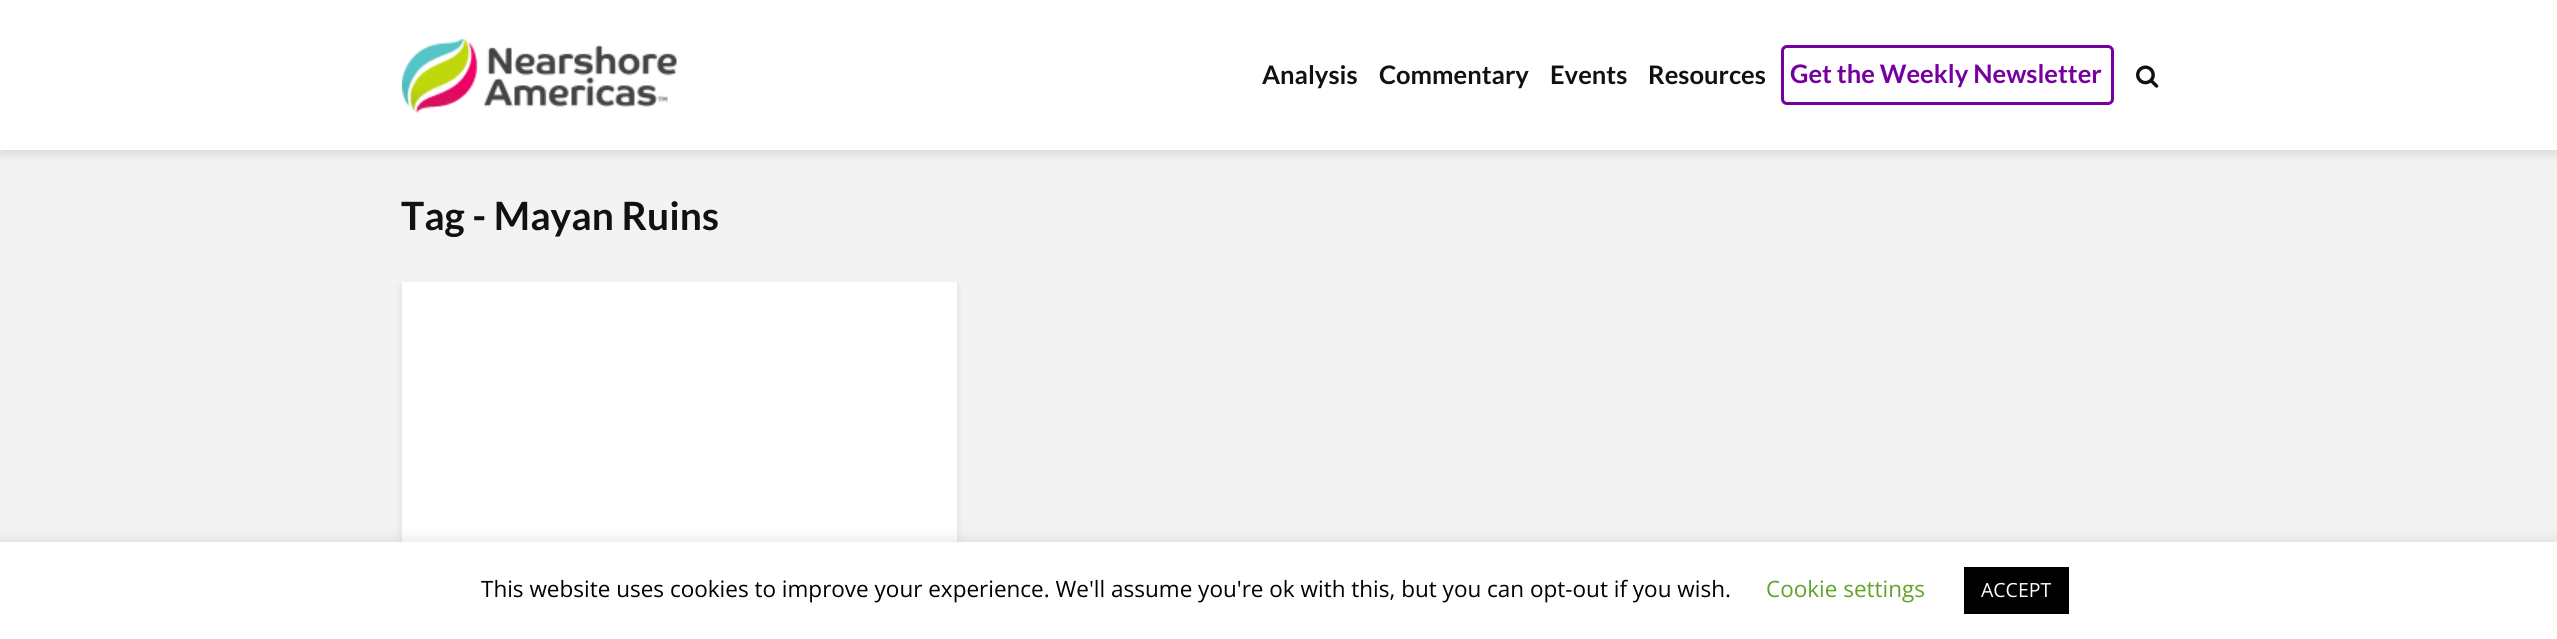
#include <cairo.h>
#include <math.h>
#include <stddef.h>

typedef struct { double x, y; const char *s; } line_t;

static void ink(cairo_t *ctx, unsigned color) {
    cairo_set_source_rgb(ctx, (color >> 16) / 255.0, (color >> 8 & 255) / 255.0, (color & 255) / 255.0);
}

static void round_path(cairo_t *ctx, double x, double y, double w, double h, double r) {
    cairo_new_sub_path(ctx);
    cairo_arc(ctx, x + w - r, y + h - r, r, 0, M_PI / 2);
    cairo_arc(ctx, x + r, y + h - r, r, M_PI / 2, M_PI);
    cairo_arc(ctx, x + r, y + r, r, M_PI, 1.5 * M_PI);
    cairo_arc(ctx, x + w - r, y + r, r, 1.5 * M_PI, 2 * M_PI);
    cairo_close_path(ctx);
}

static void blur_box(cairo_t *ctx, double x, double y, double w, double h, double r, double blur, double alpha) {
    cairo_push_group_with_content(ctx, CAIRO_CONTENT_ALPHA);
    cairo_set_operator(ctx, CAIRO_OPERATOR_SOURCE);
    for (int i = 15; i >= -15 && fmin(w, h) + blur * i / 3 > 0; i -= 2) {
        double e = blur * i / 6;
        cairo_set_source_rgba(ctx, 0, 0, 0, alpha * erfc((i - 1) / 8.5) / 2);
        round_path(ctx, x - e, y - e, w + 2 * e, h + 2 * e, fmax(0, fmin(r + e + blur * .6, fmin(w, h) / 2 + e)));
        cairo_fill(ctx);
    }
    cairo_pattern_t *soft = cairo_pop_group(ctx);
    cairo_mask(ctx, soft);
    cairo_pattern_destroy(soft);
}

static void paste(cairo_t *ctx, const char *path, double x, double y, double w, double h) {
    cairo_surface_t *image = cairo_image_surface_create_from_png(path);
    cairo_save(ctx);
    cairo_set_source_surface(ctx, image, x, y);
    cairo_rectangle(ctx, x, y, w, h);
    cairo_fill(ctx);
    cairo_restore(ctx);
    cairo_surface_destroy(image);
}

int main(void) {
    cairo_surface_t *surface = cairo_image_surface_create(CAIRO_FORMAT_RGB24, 2557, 639);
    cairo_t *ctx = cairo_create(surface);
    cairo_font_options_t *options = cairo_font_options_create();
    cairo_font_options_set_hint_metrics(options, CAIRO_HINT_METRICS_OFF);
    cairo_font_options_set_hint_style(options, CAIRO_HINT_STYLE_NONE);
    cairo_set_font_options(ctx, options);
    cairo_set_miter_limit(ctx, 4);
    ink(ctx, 0xF3F3F3);
    cairo_paint(ctx);
    ink(ctx, 0x000101);
    blur_box(ctx, 0, 5, 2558, 150, 0, 4, 0.1);
    ink(ctx, 0xFFFFFF);
    cairo_rectangle(ctx, 0, 0, 2557, 150);
    cairo_fill(ctx);
    paste(ctx, "media/1.png", 402, 38, 275, 75);
    cairo_select_font_face(ctx, "Lato", CAIRO_FONT_SLANT_NORMAL, CAIRO_FONT_WEIGHT_BOLD);
    cairo_set_font_size(ctx, 25.5);
    ink(ctx, 0x111111);
    {
        static const line_t items[] = {
            {1262, 84, "Analysis"},
            {1379, 84, "Commentary"},
            {1550, 84, "Events"},
            {1648, 84, "Resources"},
        };
        for (size_t i = 0; i < sizeof items / sizeof *items; i++) {
            cairo_move_to(ctx, items[i].x, items[i].y);
            cairo_show_text(ctx, items[i].s);
        }
    }
    round_path(ctx, 1782.5, 46.5, 330, 57, 4.5);
    ink(ctx, 0x75009F);
    cairo_set_line_width(ctx, 3);
    cairo_stroke(ctx);
    cairo_move_to(ctx, 1790, 83);
    cairo_show_text(ctx, "Get the Weekly Newsletter");
    paste(ctx, "media/2.png", 2136, 65, 23, 23);
    cairo_set_font_size(ctx, 39);
    ink(ctx, 0x111111);
    cairo_move_to(ctx, 401, 230);
    cairo_show_text(ctx, "Tag - Mayan Ruins");
    ink(ctx, 0x000101);
    blur_box(ctx, 402, 287, 555, 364, 0, 4, 0.1);
    ink(ctx, 0xFFFFFF);
    cairo_rectangle(ctx, 402, 282, 555, 260);
    cairo_fill(ctx);
    ink(ctx, 0xACABAB);
    blur_box(ctx, 0, 540, 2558, 98, 0, 7.5, 0.3);
    ink(ctx, 0xFFFFFF);
    cairo_rectangle(ctx, 0, 542, 2557, 97);
    cairo_fill(ctx);
    cairo_select_font_face(ctx, "Open Sans", CAIRO_FONT_SLANT_NORMAL, CAIRO_FONT_WEIGHT_NORMAL);
    cairo_set_font_size(ctx, 22.5);
    ink(ctx, 0x000000);
    cairo_move_to(ctx, 481, 597);
    cairo_show_text(ctx, "This website uses cookies to improve your experience. We'll assume you're ok with this, but you can opt-out if you wish.");
    ink(ctx, 0x62A329);
    cairo_move_to(ctx, 1766, 597);
    cairo_show_text(ctx, "Cookie settings");
    ink(ctx, 0x000000);
    cairo_rectangle(ctx, 1964, 567, 105, 47);
    cairo_fill(ctx);
    cairo_set_font_size(ctx, 19.5);
    ink(ctx, 0xFFFFFF);
    cairo_move_to(ctx, 1981, 597);
    cairo_show_text(ctx, "ACCEPT");
    cairo_surface_write_to_png(surface, "image.png");
    cairo_font_options_destroy(options);
    cairo_destroy(ctx);
    cairo_surface_destroy(surface);
    return 0;
}
